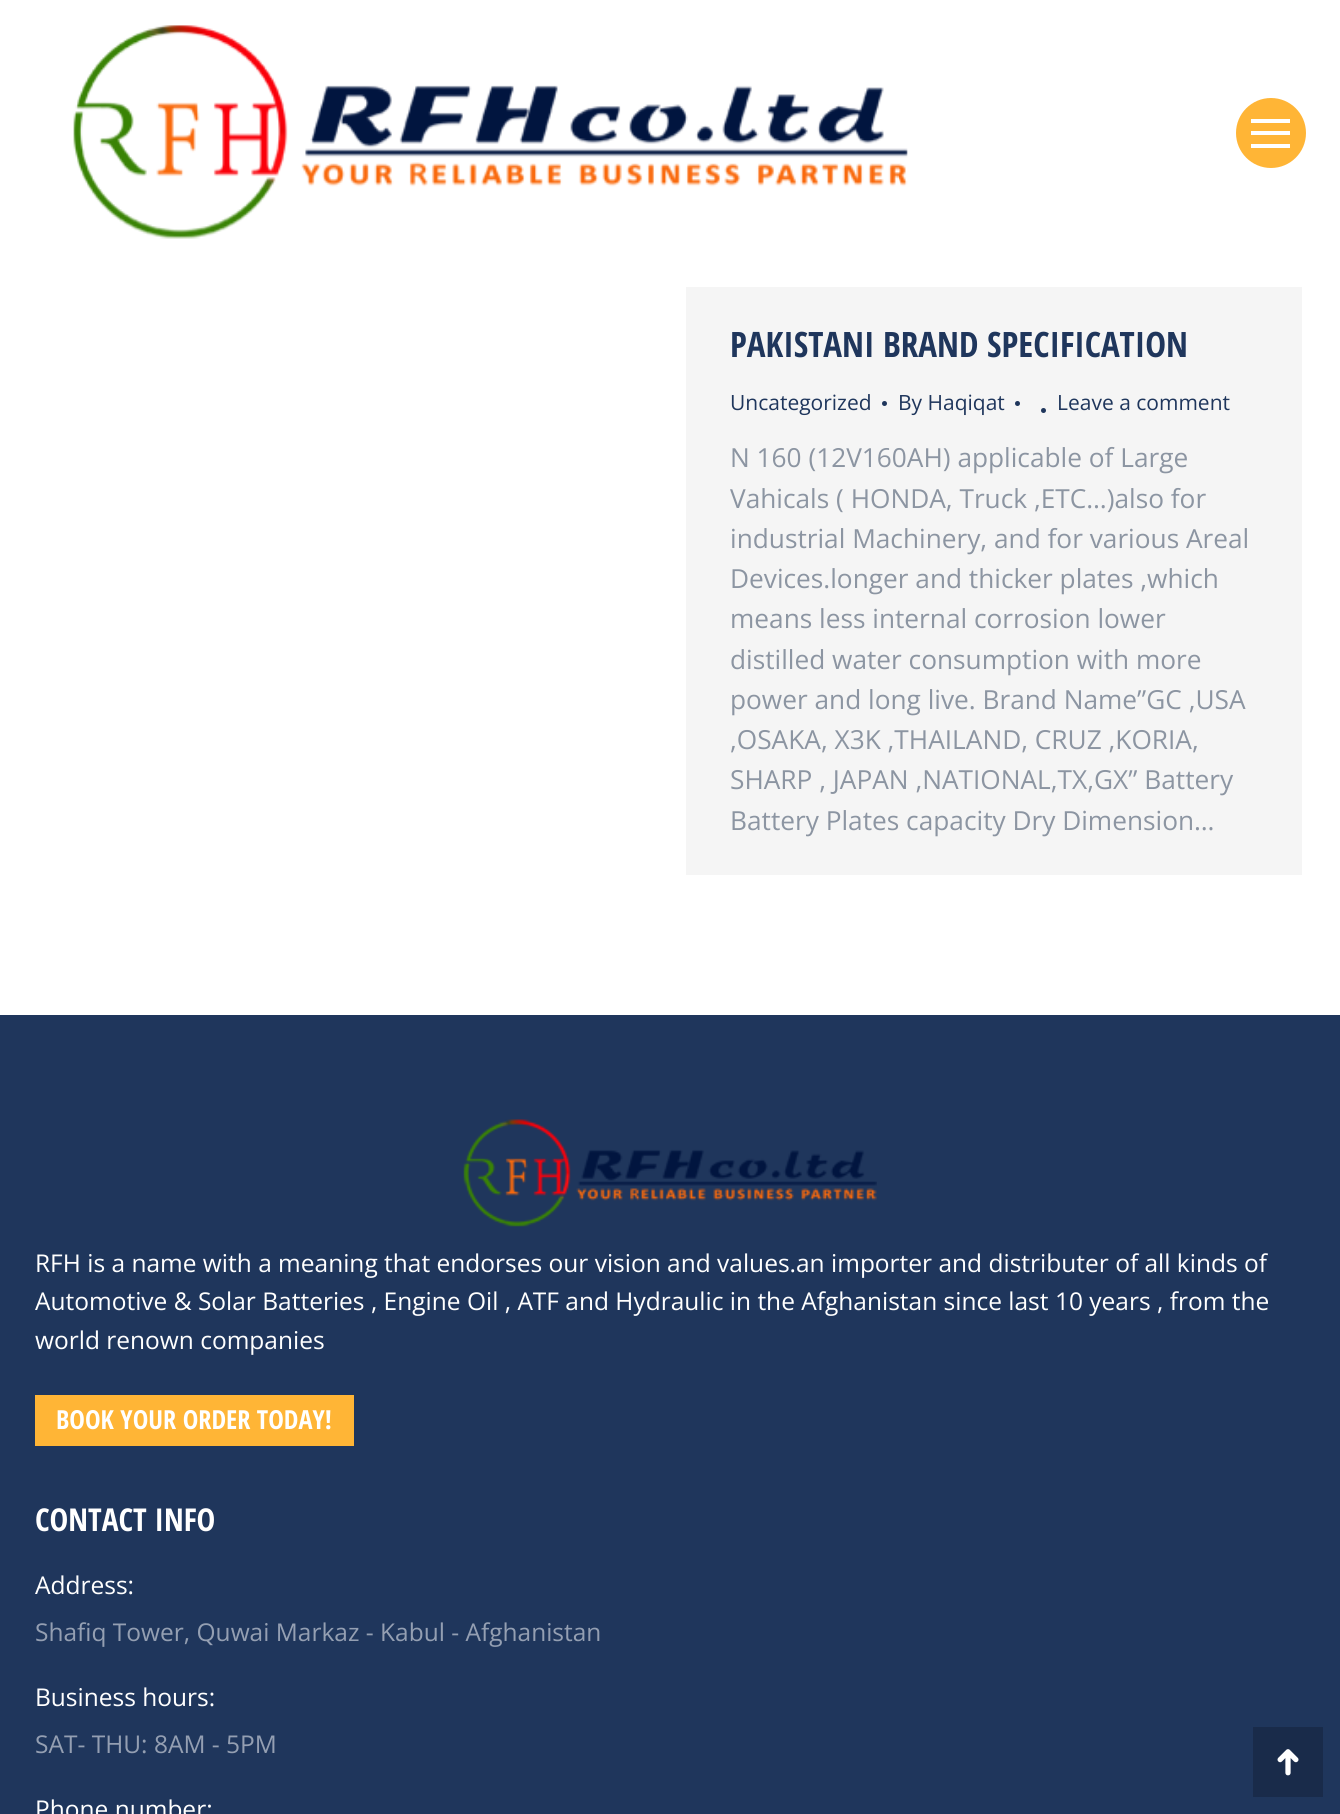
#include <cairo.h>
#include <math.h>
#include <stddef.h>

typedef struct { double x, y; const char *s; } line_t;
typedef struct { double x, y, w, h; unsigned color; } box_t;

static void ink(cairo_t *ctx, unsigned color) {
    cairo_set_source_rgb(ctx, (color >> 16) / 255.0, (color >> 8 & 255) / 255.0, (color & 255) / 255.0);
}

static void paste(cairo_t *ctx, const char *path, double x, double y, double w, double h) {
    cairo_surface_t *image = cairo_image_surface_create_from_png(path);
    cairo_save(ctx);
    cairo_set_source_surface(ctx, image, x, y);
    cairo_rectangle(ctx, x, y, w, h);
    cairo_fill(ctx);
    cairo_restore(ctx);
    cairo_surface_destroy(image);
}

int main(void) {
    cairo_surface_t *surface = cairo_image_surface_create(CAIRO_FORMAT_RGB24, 1340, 1814);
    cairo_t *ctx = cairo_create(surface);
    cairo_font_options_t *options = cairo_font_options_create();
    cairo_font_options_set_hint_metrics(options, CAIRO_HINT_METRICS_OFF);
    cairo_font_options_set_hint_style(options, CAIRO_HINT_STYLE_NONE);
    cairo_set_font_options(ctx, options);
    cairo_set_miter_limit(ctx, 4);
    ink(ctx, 0xFFFFFF);
    cairo_paint(ctx);
    paste(ctx, "media/1.png", 73, 25, 835, 214);
    ink(ctx, 0xFFB536);
    cairo_arc(ctx, 1271, 133, 35, 0, 2 * M_PI);
    cairo_fill(ctx);
    {
        static const box_t items[] = {
            {1251, 119, 39, 4, 0xFFFFFF},
            {1251, 131, 39, 4, 0xFFFFFF},
            {1251, 144, 39, 4, 0xFFFFFF},
            {686, 287, 616, 588, 0xF5F5F5},
        };
        for (size_t i = 0; i < sizeof items / sizeof *items; i++) {
            ink(ctx, items[i].color);
            cairo_rectangle(ctx, items[i].x, items[i].y, items[i].w, items[i].h);
            cairo_fill(ctx);
        }
    }
    cairo_select_font_face(ctx, "Open Sans Condensed", CAIRO_FONT_SLANT_NORMAL, CAIRO_FONT_WEIGHT_BOLD);
    cairo_set_font_size(ctx, 35);
    ink(ctx, 0x1F365C);
    cairo_move_to(ctx, 730, 357);
    cairo_show_text(ctx, "PAKISTANI BRAND SPECIFICATION");
    cairo_select_font_face(ctx, "Open Sans", CAIRO_FONT_SLANT_NORMAL, CAIRO_FONT_WEIGHT_NORMAL);
    cairo_set_font_size(ctx, 21);
    cairo_move_to(ctx, 730, 410);
    cairo_show_text(ctx, "Uncategorized");
    cairo_new_path(ctx);
    cairo_arc(ctx, 884.5, 403.5, 2.5, 0, 2 * M_PI);
    cairo_fill(ctx);
    cairo_move_to(ctx, 898, 410);
    cairo_show_text(ctx, "By Haqiqat");
    cairo_new_path(ctx);
    cairo_arc(ctx, 1017.5, 403.5, 2.5, 0, 2 * M_PI);
    cairo_fill(ctx);
    cairo_arc(ctx, 1043.5, 410.5, 2.5, 0, 2 * M_PI);
    cairo_fill(ctx);
    cairo_move_to(ctx, 1057, 410);
    cairo_show_text(ctx, "Leave a comment");
    cairo_set_font_size(ctx, 26.25);
    ink(ctx, 0x8C95A2);
    {
        static const line_t items[] = {
            {730, 467, "N 160 (12V160AH) applicable of Large"},
            {730, 508, "Vahicals ( HONDA, Truck ,ETC…)also for"},
            {730, 548, "industrial Machinery, and for various Areal"},
            {730, 588, "Devices.longer and thicker plates ,which"},
            {730, 628, "means less internal corrosion lower"},
            {730, 669, "distilled water consumption with more"},
            {730, 709, "power and long live. Brand Name”GC ,USA"},
            {730, 749, ",OSAKA, X3K ,THAILAND, CRUZ ,KORIA,"},
            {730, 789, "SHARP , JAPAN ,NATIONAL,TX,GX” Battery"},
            {730, 830, "Battery Plates capacity Dry Dimension…"},
        };
        for (size_t i = 0; i < sizeof items / sizeof *items; i++) {
            cairo_move_to(ctx, items[i].x, items[i].y);
            cairo_show_text(ctx, items[i].s);
        }
    }
    ink(ctx, 0x1F365C);
    cairo_rectangle(ctx, 0, 1015, 1340, 799);
    cairo_fill(ctx);
    paste(ctx, "media/2.png", 463, 1119, 414, 108);
    cairo_set_font_size(ctx, 24.5);
    ink(ctx, 0xFFFFFF);
    {
        static const line_t items[] = {
            {35, 1272, "RFH is a name with a meaning that endorses our vision and values.an importer and distributer of all kinds of"},
            {35, 1310, "Automotive & Solar Batteries , Engine Oil , ATF and Hydraulic in the Afghanistan since last 10 years , from the"},
            {35, 1349, "world renown companies"},
        };
        for (size_t i = 0; i < sizeof items / sizeof *items; i++) {
            cairo_move_to(ctx, items[i].x, items[i].y);
            cairo_show_text(ctx, items[i].s);
        }
    }
    ink(ctx, 0xFFB536);
    cairo_rectangle(ctx, 35, 1395, 319, 51);
    cairo_fill(ctx);
    cairo_select_font_face(ctx, "Open Sans Condensed", CAIRO_FONT_SLANT_NORMAL, CAIRO_FONT_WEIGHT_BOLD);
    cairo_set_font_size(ctx, 26.25);
    ink(ctx, 0xFFFFFF);
    cairo_move_to(ctx, 56, 1429);
    cairo_show_text(ctx, "BOOK YOUR ORDER TODAY!");
    cairo_set_font_size(ctx, 31.5);
    cairo_move_to(ctx, 35, 1531);
    cairo_show_text(ctx, "CONTACT INFO");
    cairo_select_font_face(ctx, "Open Sans", CAIRO_FONT_SLANT_NORMAL, CAIRO_FONT_WEIGHT_NORMAL);
    cairo_set_font_size(ctx, 24.5);
    cairo_move_to(ctx, 35, 1594);
    cairo_show_text(ctx, "Address:");
    ink(ctx, 0x949FB2);
    cairo_move_to(ctx, 35, 1641);
    cairo_show_text(ctx, "Shafiq Tower, Quwai Markaz - Kabul - Afghanistan");
    ink(ctx, 0xFFFFFF);
    cairo_move_to(ctx, 35, 1706);
    cairo_show_text(ctx, "Business hours:");
    ink(ctx, 0x949FB2);
    cairo_move_to(ctx, 35, 1753);
    cairo_show_text(ctx, "SAT- THU: 8AM - 5PM");
    ink(ctx, 0xFFFFFF);
    cairo_move_to(ctx, 35, 1818);
    cairo_show_text(ctx, "Phone number:");
    ink(ctx, 0x192B4A);
    cairo_rectangle(ctx, 1253, 1727, 70, 70);
    cairo_fill(ctx);
    paste(ctx, "media/3.png", 1277, 1749, 22, 27);
    cairo_surface_write_to_png(surface, "image.png");
    cairo_font_options_destroy(options);
    cairo_destroy(ctx);
    cairo_surface_destroy(surface);
    return 0;
}
